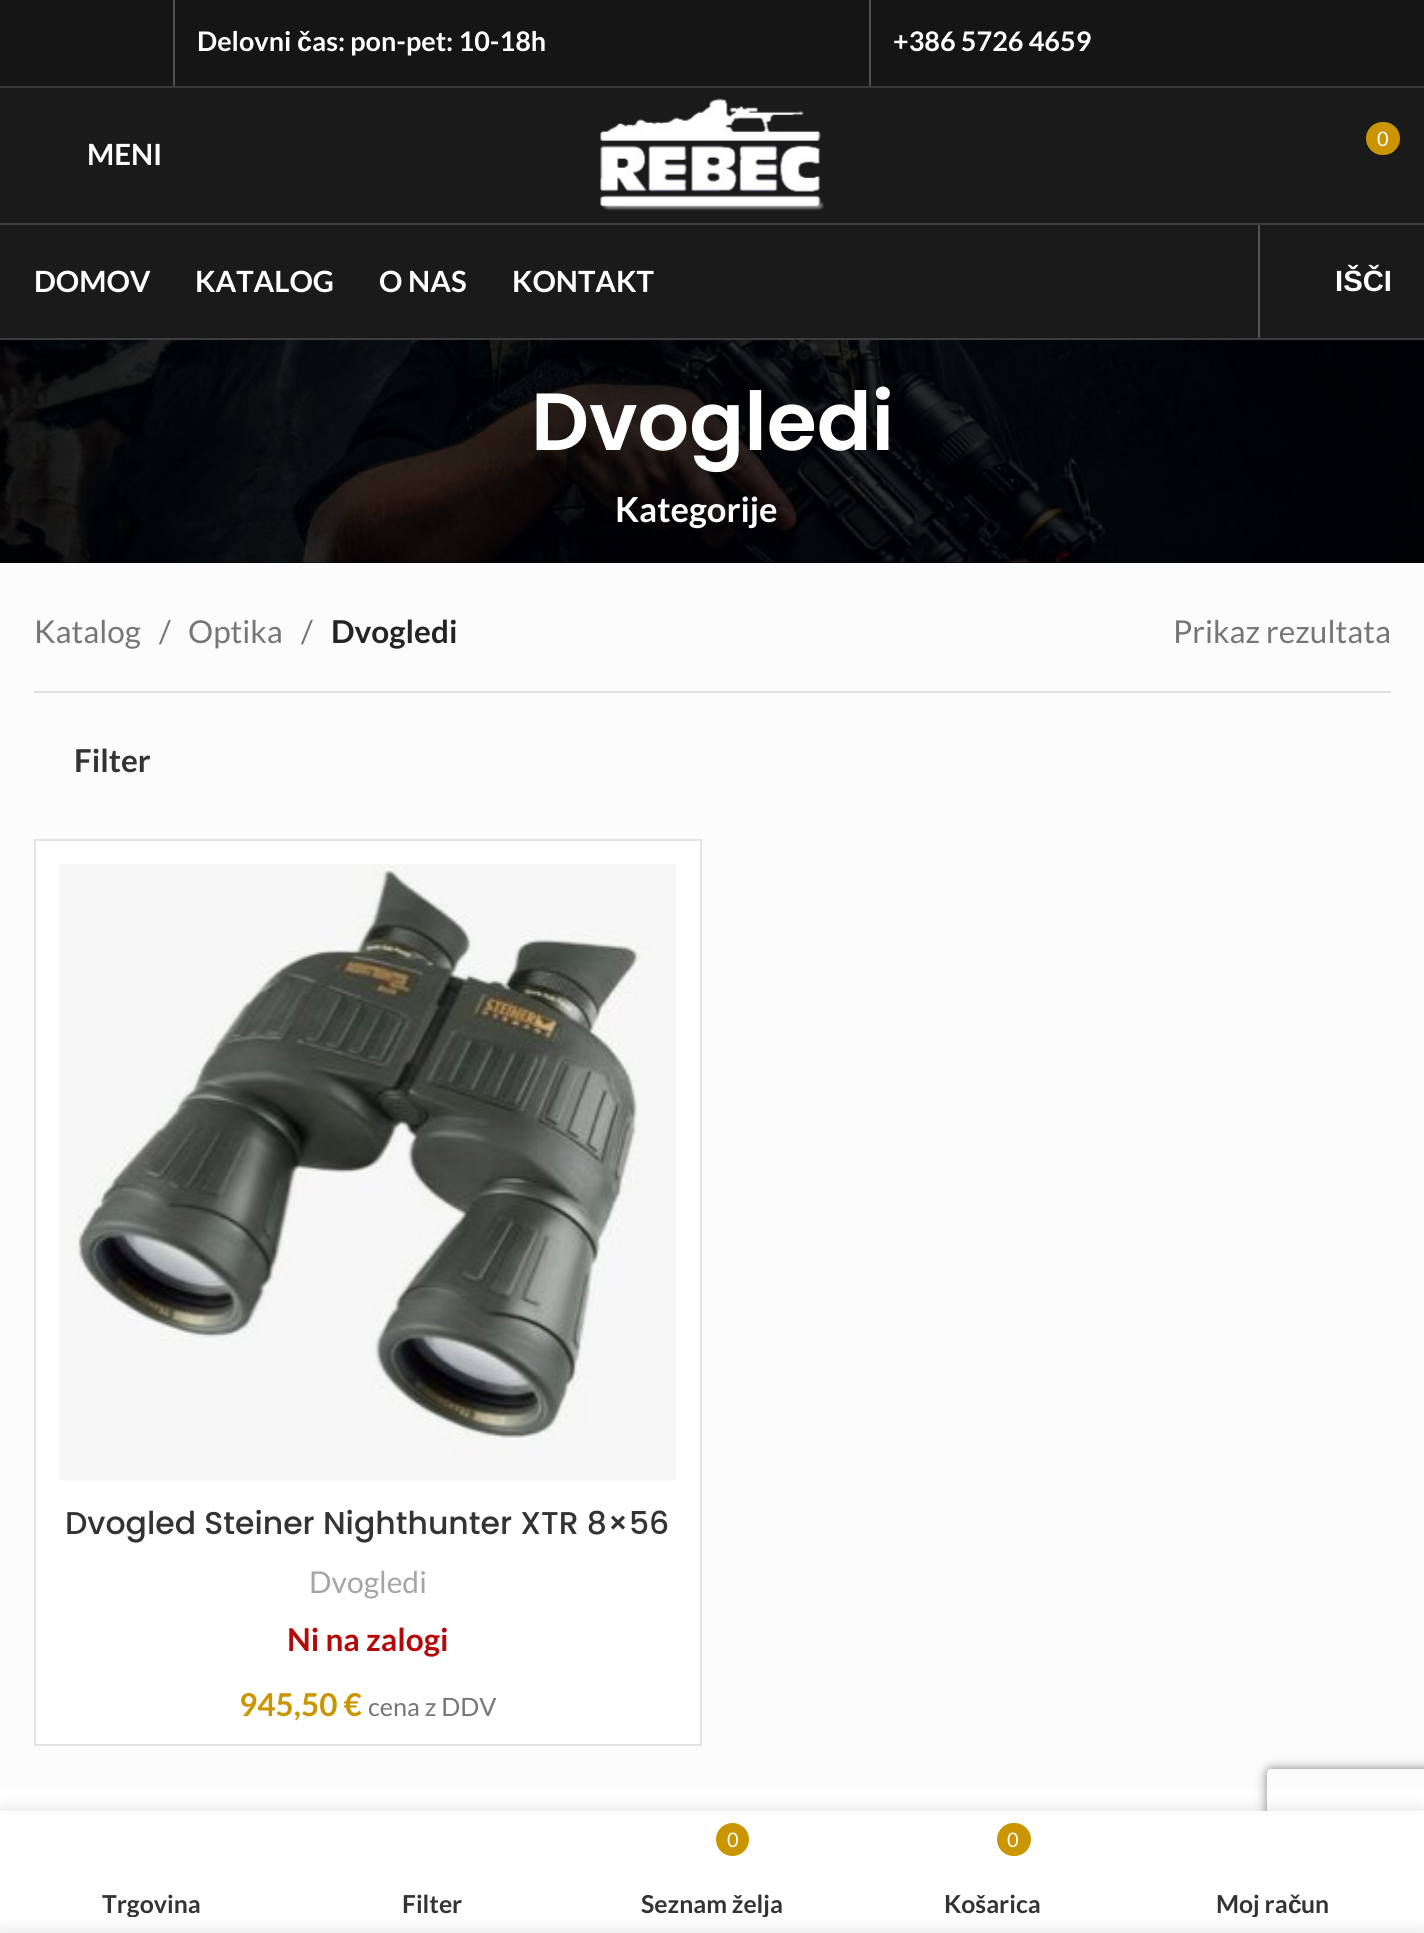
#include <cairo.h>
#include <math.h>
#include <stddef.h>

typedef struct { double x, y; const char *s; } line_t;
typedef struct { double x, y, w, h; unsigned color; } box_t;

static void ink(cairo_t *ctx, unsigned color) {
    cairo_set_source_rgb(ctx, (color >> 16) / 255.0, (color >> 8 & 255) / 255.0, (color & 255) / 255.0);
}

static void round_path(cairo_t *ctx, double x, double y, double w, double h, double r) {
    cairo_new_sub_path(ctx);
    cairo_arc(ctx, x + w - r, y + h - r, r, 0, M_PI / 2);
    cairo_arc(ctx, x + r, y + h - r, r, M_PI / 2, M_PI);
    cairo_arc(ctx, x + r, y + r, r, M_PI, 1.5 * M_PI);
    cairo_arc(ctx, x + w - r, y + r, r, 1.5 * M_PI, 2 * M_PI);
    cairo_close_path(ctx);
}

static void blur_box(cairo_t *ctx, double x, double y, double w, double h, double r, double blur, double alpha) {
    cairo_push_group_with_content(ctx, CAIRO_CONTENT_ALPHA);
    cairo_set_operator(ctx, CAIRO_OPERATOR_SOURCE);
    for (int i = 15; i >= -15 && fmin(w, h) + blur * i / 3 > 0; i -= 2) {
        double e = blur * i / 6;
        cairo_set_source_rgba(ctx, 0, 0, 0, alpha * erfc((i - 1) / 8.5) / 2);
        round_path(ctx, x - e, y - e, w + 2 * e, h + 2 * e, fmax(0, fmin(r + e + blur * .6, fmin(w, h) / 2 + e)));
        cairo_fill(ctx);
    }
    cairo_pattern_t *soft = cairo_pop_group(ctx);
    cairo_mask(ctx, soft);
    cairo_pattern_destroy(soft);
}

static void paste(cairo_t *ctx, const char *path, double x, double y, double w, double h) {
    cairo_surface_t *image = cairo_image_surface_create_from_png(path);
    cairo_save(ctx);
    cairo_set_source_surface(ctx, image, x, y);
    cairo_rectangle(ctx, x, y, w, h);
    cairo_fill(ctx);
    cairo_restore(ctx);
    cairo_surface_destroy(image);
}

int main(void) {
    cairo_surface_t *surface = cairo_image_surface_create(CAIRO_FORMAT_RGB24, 1424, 1933);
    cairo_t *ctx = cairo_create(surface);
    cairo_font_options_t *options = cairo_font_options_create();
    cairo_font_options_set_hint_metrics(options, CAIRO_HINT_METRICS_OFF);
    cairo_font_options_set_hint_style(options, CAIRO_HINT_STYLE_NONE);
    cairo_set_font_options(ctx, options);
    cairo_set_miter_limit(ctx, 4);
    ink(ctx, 0xFFFFFF);
    cairo_paint(ctx);
    {
        static const box_t items[] = {
            {0, 0, 1424, 86, 0x151515},
            {0, 86, 1424, 2, 0x383838},
            {173, 0, 2, 86, 0x505050},
        };
        for (size_t i = 0; i < sizeof items / sizeof *items; i++) {
            ink(ctx, items[i].color);
            cairo_rectangle(ctx, items[i].x, items[i].y, items[i].w, items[i].h);
            cairo_fill(ctx);
        }
    }
    cairo_select_font_face(ctx, "Lato", CAIRO_FONT_SLANT_NORMAL, CAIRO_FONT_WEIGHT_BOLD);
    cairo_set_font_size(ctx, 27);
    ink(ctx, 0xFFFFFF);
    cairo_move_to(ctx, 197, 51);
    cairo_show_text(ctx, "Delovni");
    cairo_select_font_face(ctx, "Liberation Sans", CAIRO_FONT_SLANT_NORMAL, CAIRO_FONT_WEIGHT_BOLD);
    cairo_move_to(ctx, 297, 51);
    cairo_show_text(ctx, "č");
    cairo_select_font_face(ctx, "Lato", CAIRO_FONT_SLANT_NORMAL, CAIRO_FONT_WEIGHT_BOLD);
    cairo_move_to(ctx, 312, 51);
    cairo_show_text(ctx, "as: pon-pet: 10-18h");
    ink(ctx, 0x505050);
    cairo_rectangle(ctx, 869, 0, 2, 86);
    cairo_fill(ctx);
    ink(ctx, 0xFFFFFF);
    cairo_move_to(ctx, 893, 51);
    cairo_show_text(ctx, "+386 5726 4659");
    ink(ctx, 0x1A1A1A);
    cairo_rectangle(ctx, 0, 88, 1424, 135);
    cairo_fill(ctx);
    ink(ctx, 0x3C3C3C);
    cairo_rectangle(ctx, 0, 223, 1424, 2);
    cairo_fill(ctx);
    paste(ctx, "media/1.png", 600, 98, 225, 113);
    ink(ctx, 0xCB9500);
    round_path(ctx, 1366, 122, 34, 33, 16.5);
    cairo_fill(ctx);
    cairo_select_font_face(ctx, "Lato", CAIRO_FONT_SLANT_NORMAL, CAIRO_FONT_WEIGHT_NORMAL);
    cairo_set_font_size(ctx, 20);
    ink(ctx, 0xFFFFFF);
    cairo_move_to(ctx, 1377, 146);
    cairo_show_text(ctx, "0");
    cairo_select_font_face(ctx, "Lato", CAIRO_FONT_SLANT_NORMAL, CAIRO_FONT_WEIGHT_BOLD);
    cairo_set_font_size(ctx, 29.25);
    cairo_move_to(ctx, 87, 165);
    cairo_show_text(ctx, "MENI");
    ink(ctx, 0x1A1A1A);
    cairo_rectangle(ctx, 0, 225, 1424, 113);
    cairo_fill(ctx);
    ink(ctx, 0x3C3C3C);
    cairo_rectangle(ctx, 0, 338, 1424, 2);
    cairo_fill(ctx);
    ink(ctx, 0xFFFFFF);
    {
        static const line_t items[] = {
            {34, 292, "DOMOV"},
            {195, 292, "KATALOG"},
            {379, 292, "O NAS"},
            {512, 292, "KONTAKT"},
        };
        for (size_t i = 0; i < sizeof items / sizeof *items; i++) {
            cairo_move_to(ctx, items[i].x, items[i].y);
            cairo_show_text(ctx, items[i].s);
        }
    }
    ink(ctx, 0x535353);
    cairo_rectangle(ctx, 1258, 225, 2, 113);
    cairo_fill(ctx);
    cairo_select_font_face(ctx, "Liberation Sans", CAIRO_FONT_SLANT_NORMAL, CAIRO_FONT_WEIGHT_BOLD);
    ink(ctx, 0xFFFFFF);
    cairo_move_to(ctx, 1335, 291);
    cairo_show_text(ctx, "IŠČI");
    ink(ctx, 0xFCFCFC);
    cairo_rectangle(ctx, 0, 563, 1424, 1228);
    cairo_fill(ctx);
    ink(ctx, 0x0A0A0A);
    cairo_rectangle(ctx, 0, 562, 1424, 1);
    cairo_fill(ctx);
    paste(ctx, "media/2.png", 0, 340, 1424, 223);
    cairo_select_font_face(ctx, "Poppins SemiBold", CAIRO_FONT_SLANT_NORMAL, CAIRO_FONT_WEIGHT_NORMAL);
    cairo_set_font_size(ctx, 81);
    ink(ctx, 0xFFFFFF);
    cairo_move_to(ctx, 531, 450);
    cairo_show_text(ctx, "Dvogledi");
    cairo_select_font_face(ctx, "Lato", CAIRO_FONT_SLANT_NORMAL, CAIRO_FONT_WEIGHT_BOLD);
    cairo_set_font_size(ctx, 34.5);
    cairo_move_to(ctx, 615, 522);
    cairo_show_text(ctx, "Kategorije");
    ink(ctx, 0xE1E1E1);
    cairo_rectangle(ctx, 34, 691, 1357, 2);
    cairo_fill(ctx);
    cairo_select_font_face(ctx, "Lato", CAIRO_FONT_SLANT_NORMAL, CAIRO_FONT_WEIGHT_NORMAL);
    cairo_set_font_size(ctx, 31.5);
    ink(ctx, 0x767676);
    {
        static const line_t items[] = {
            {34, 643, "Katalog"},
            {159, 643, "/"},
            {188, 643, "Optika"},
            {301, 643, "/"},
        };
        for (size_t i = 0; i < sizeof items / sizeof *items; i++) {
            cairo_move_to(ctx, items[i].x, items[i].y);
            cairo_show_text(ctx, items[i].s);
        }
    }
    cairo_select_font_face(ctx, "Lato", CAIRO_FONT_SLANT_NORMAL, CAIRO_FONT_WEIGHT_BOLD);
    ink(ctx, 0x242424);
    cairo_move_to(ctx, 331, 643);
    cairo_show_text(ctx, "Dvogledi");
    cairo_select_font_face(ctx, "Lato", CAIRO_FONT_SLANT_NORMAL, CAIRO_FONT_WEIGHT_NORMAL);
    ink(ctx, 0x767676);
    cairo_move_to(ctx, 1173, 643);
    cairo_show_text(ctx, "Prikaz rezultata");
    cairo_select_font_face(ctx, "Lato", CAIRO_FONT_SLANT_NORMAL, CAIRO_FONT_WEIGHT_BOLD);
    ink(ctx, 0x333333);
    cairo_move_to(ctx, 74, 772);
    cairo_show_text(ctx, "Filter");
    ink(ctx, 0xFFFFFF);
    cairo_rectangle(ctx, 35, 840, 666, 905);
    cairo_fill_preserve(ctx);
    ink(ctx, 0xE4E4E4);
    cairo_stroke(ctx);
    paste(ctx, "media/3.png", 58, 864, 619, 617);
    cairo_select_font_face(ctx, "Poppins Medium", CAIRO_FONT_SLANT_NORMAL, CAIRO_FONT_WEIGHT_NORMAL);
    ink(ctx, 0x333333);
    cairo_move_to(ctx, 65, 1534);
    cairo_show_text(ctx, "Dvogled Steiner Nighthunter XTR 8×56");
    cairo_select_font_face(ctx, "Lato", CAIRO_FONT_SLANT_NORMAL, CAIRO_FONT_WEIGHT_NORMAL);
    cairo_set_font_size(ctx, 30);
    ink(ctx, 0xA5A5A5);
    cairo_move_to(ctx, 309, 1593);
    cairo_show_text(ctx, "Dvogledi");
    cairo_select_font_face(ctx, "Lato", CAIRO_FONT_SLANT_NORMAL, CAIRO_FONT_WEIGHT_BOLD);
    cairo_set_font_size(ctx, 31.5);
    ink(ctx, 0xB50808);
    cairo_move_to(ctx, 287, 1651);
    cairo_show_text(ctx, "Ni na zalogi");
    ink(ctx, 0xCB9500);
    cairo_move_to(ctx, 239, 1716);
    cairo_show_text(ctx, "945,50 €");
    cairo_select_font_face(ctx, "Lato", CAIRO_FONT_SLANT_NORMAL, CAIRO_FONT_WEIGHT_NORMAL);
    cairo_set_font_size(ctx, 25.25);
    ink(ctx, 0x767676);
    cairo_move_to(ctx, 368, 1716);
    cairo_show_text(ctx, "cena z DDV");
    ink(ctx, 0x000000);
    blur_box(ctx, 0, 1811, 1424, 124, 0, 10, 0.12);
    cairo_save(ctx);
    cairo_set_fill_rule(ctx, CAIRO_FILL_RULE_EVEN_ODD);
    cairo_new_path(ctx);
    cairo_move_to(ctx, 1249, 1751);
    cairo_line_to(ctx, 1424, 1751);
    cairo_line_to(ctx, 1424, 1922);
    cairo_line_to(ctx, 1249, 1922);
    cairo_close_path(ctx);
    cairo_move_to(ctx, 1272, 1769);
    cairo_line_to(ctx, 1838, 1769);
    cairo_curve_to(ctx, 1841, 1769, 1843, 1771, 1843, 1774);
    cairo_line_to(ctx, 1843, 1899);
    cairo_curve_to(ctx, 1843, 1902, 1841, 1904, 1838, 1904);
    cairo_line_to(ctx, 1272, 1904);
    cairo_curve_to(ctx, 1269, 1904, 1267, 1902, 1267, 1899);
    cairo_line_to(ctx, 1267, 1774);
    cairo_curve_to(ctx, 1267, 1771, 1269, 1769, 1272, 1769);
    cairo_close_path(ctx);
    cairo_clip(ctx);
    ink(ctx, 0x808080);
    blur_box(ctx, 1267, 1769, 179, 135, 5, 5.5, 1);
    cairo_restore(ctx);
    ink(ctx, 0xFFFFFF);
    cairo_rectangle(ctx, 0, 1811, 1424, 122);
    cairo_fill(ctx);
    cairo_save(ctx);
    cairo_rectangle(ctx, 34, 1888, 236, 29);
    cairo_clip(ctx);
    cairo_select_font_face(ctx, "Lato", CAIRO_FONT_SLANT_NORMAL, CAIRO_FONT_WEIGHT_BOLD);
    cairo_set_font_size(ctx, 24.75);
    ink(ctx, 0x333333);
    cairo_move_to(ctx, 102, 1913);
    cairo_show_text(ctx, "Trgovina");
    cairo_restore(ctx);
    cairo_select_font_face(ctx, "Lato", CAIRO_FONT_SLANT_NORMAL, CAIRO_FONT_WEIGHT_BOLD);
    cairo_set_font_size(ctx, 24.75);
    ink(ctx, 0x333333);
    cairo_move_to(ctx, 402, 1913);
    cairo_show_text(ctx, "Filter");
    ink(ctx, 0xCB9500);
    cairo_new_path(ctx);
    cairo_arc(ctx, 732.5, 1839.5, 16.5, 0, 2 * M_PI);
    cairo_fill(ctx);
    cairo_select_font_face(ctx, "Lato", CAIRO_FONT_SLANT_NORMAL, CAIRO_FONT_WEIGHT_NORMAL);
    cairo_set_font_size(ctx, 20);
    ink(ctx, 0xFFFFFF);
    cairo_move_to(ctx, 727, 1847);
    cairo_show_text(ctx, "0");
    cairo_save(ctx);
    cairo_rectangle(ctx, 594, 1888, 236, 29);
    cairo_clip(ctx);
    cairo_select_font_face(ctx, "Lato", CAIRO_FONT_SLANT_NORMAL, CAIRO_FONT_WEIGHT_BOLD);
    cairo_set_font_size(ctx, 24.75);
    ink(ctx, 0x333333);
    cairo_move_to(ctx, 641, 1913);
    cairo_show_text(ctx, "Seznam želja");
    cairo_restore(ctx);
    ink(ctx, 0xCB9500);
    round_path(ctx, 997, 1823, 34, 33, 16.5);
    cairo_fill(ctx);
    ink(ctx, 0xFFFFFF);
    cairo_move_to(ctx, 1007, 1847);
    cairo_show_text(ctx, "0");
    cairo_select_font_face(ctx, "Lato", CAIRO_FONT_SLANT_NORMAL, CAIRO_FONT_WEIGHT_BOLD);
    cairo_set_font_size(ctx, 24.75);
    ink(ctx, 0x333333);
    cairo_move_to(ctx, 944, 1913);
    cairo_show_text(ctx, "Košarica");
    cairo_save(ctx);
    cairo_rectangle(ctx, 1154, 1888, 237, 29);
    cairo_clip(ctx);
    cairo_move_to(ctx, 1216, 1913);
    cairo_show_text(ctx, "Moj ra");
    cairo_restore(ctx);
    cairo_select_font_face(ctx, "Liberation Sans", CAIRO_FONT_SLANT_NORMAL, CAIRO_FONT_WEIGHT_BOLD);
    cairo_move_to(ctx, 1288, 1913);
    cairo_show_text(ctx, "č");
    cairo_select_font_face(ctx, "Lato", CAIRO_FONT_SLANT_NORMAL, CAIRO_FONT_WEIGHT_BOLD);
    cairo_move_to(ctx, 1301, 1913);
    cairo_show_text(ctx, "un");
    ink(ctx, 0x000000);
    blur_box(ctx, 0, 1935, 1424, 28, 0, 10, 0.14);
    cairo_surface_write_to_png(surface, "image.png");
    cairo_font_options_destroy(options);
    cairo_destroy(ctx);
    cairo_surface_destroy(surface);
    return 0;
}
